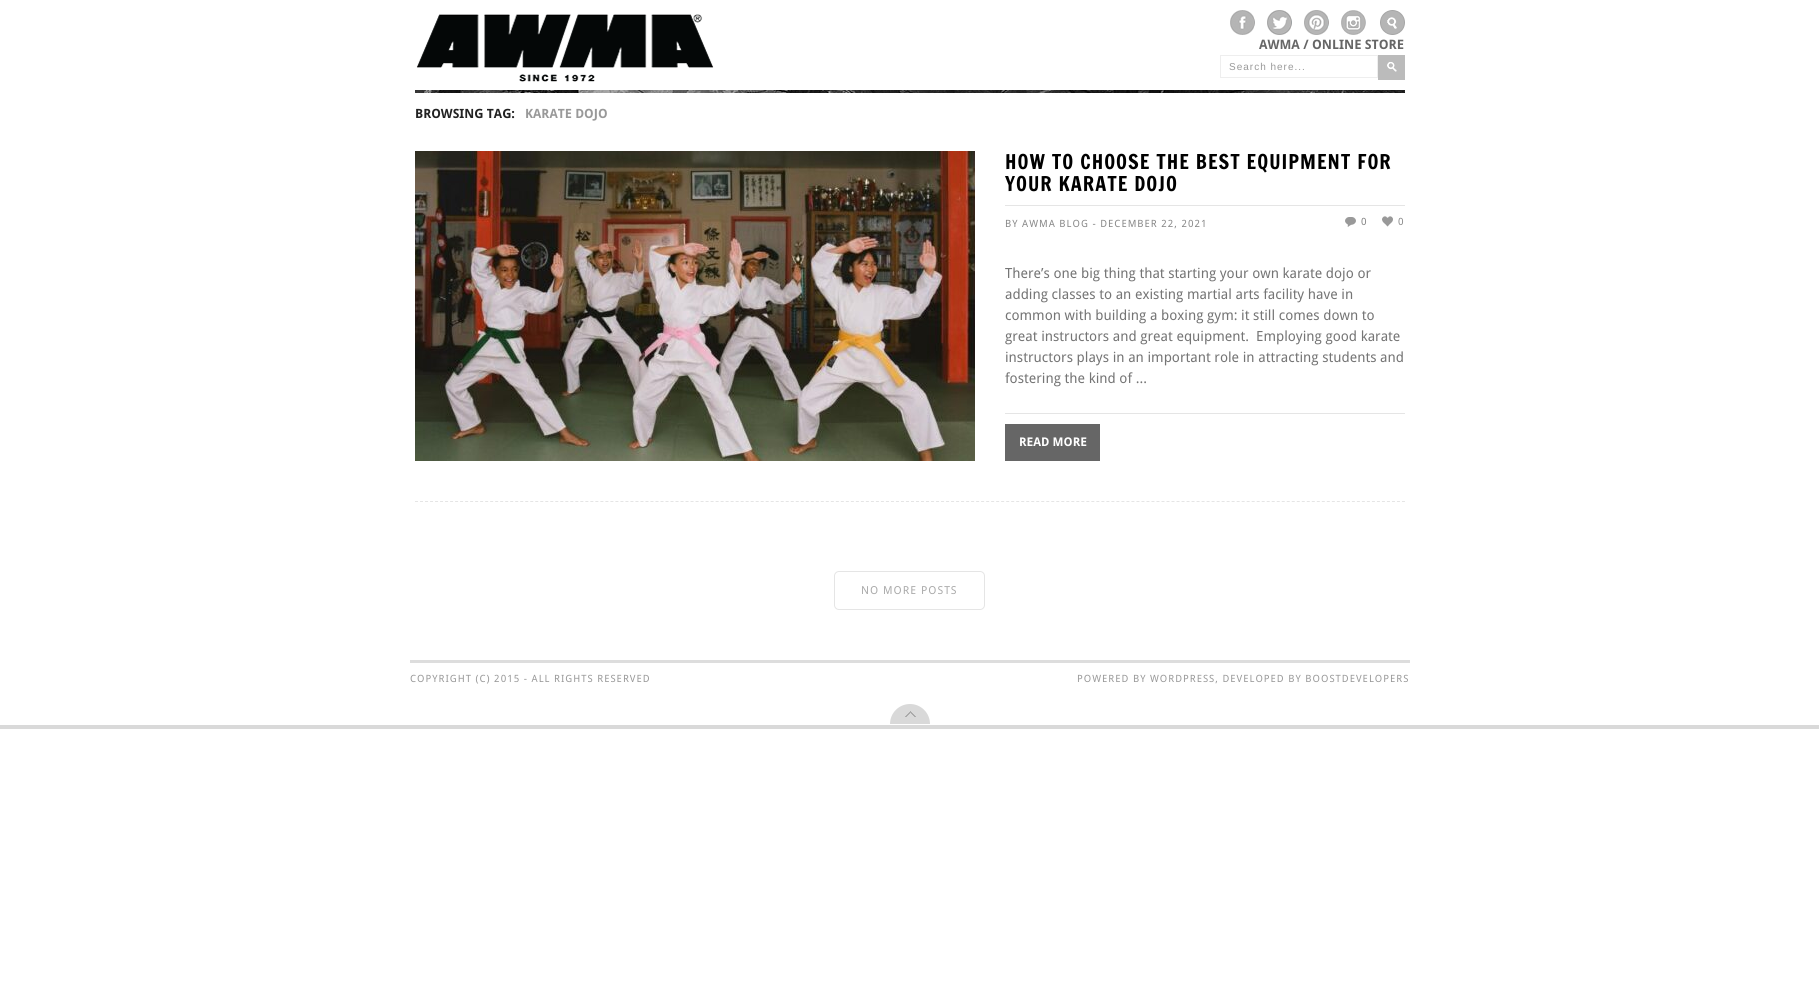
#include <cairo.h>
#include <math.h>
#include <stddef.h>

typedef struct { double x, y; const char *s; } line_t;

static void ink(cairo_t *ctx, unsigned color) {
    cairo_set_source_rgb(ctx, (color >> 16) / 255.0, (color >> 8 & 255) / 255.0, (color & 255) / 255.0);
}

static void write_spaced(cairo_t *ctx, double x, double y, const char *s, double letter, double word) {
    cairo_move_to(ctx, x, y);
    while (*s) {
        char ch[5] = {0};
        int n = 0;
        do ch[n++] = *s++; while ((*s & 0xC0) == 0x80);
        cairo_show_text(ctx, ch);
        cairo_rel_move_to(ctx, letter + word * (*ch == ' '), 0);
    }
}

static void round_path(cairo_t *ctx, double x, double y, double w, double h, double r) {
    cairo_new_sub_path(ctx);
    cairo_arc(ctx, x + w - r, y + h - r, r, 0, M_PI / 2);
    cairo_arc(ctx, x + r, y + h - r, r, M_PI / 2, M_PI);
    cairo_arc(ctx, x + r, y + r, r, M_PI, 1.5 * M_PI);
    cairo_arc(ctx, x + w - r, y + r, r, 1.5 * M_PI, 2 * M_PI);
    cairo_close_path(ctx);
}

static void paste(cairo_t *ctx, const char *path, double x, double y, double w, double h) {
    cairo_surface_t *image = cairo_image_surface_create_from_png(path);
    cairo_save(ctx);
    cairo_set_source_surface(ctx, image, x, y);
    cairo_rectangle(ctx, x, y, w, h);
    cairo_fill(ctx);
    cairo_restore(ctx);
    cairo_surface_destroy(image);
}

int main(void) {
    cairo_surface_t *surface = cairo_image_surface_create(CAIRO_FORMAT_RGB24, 1819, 984);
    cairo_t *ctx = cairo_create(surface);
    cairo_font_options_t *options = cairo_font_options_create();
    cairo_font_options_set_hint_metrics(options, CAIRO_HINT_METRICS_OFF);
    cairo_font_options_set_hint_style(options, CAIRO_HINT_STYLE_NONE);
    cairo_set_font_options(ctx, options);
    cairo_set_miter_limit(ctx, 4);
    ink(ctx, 0xFFFFFF);
    cairo_paint(ctx);
    paste(ctx, "media/1.png", 416, 14, 298, 68);
    cairo_select_font_face(ctx, "Droid Sans", CAIRO_FONT_SLANT_NORMAL, CAIRO_FONT_WEIGHT_BOLD);
    cairo_set_font_size(ctx, 13);
    ink(ctx, 0x666666);
    cairo_move_to(ctx, 1259, 49);
    cairo_show_text(ctx, "AWMA / ONLINE STORE");
    paste(ctx, "media/2.png", 1230, 10, 25, 25);
    paste(ctx, "media/3.png", 1267, 10, 25, 25);
    paste(ctx, "media/4.png", 1304, 10, 25, 25);
    paste(ctx, "media/5.png", 1341, 10, 25, 25);
    paste(ctx, "media/6.png", 1380, 10, 25, 25);
    cairo_rectangle(ctx, 1220.5, 55.5, 157, 22);
    ink(ctx, 0xEEEEEE);
    cairo_set_line_width(ctx, 1);
    cairo_stroke(ctx);
    cairo_select_font_face(ctx, "Liberation Sans", CAIRO_FONT_SLANT_NORMAL, CAIRO_FONT_WEIGHT_NORMAL);
    cairo_set_font_size(ctx, 10);
    ink(ctx, 0x999999);
    write_spaced(ctx, 1229, 70, "Search here...", 1, 0);
    paste(ctx, "media/7.png", 1378, 55, 27, 25);
    paste(ctx, "media/8.png", 415, 90, 990, 3);
    cairo_select_font_face(ctx, "Droid Sans", CAIRO_FONT_SLANT_NORMAL, CAIRO_FONT_WEIGHT_BOLD);
    cairo_set_font_size(ctx, 12.75);
    ink(ctx, 0x222222);
    cairo_move_to(ctx, 415, 118);
    cairo_show_text(ctx, "BROWSING TAG:");
    ink(ctx, 0x999999);
    cairo_move_to(ctx, 525, 118);
    cairo_show_text(ctx, "KARATE DOJO");
    cairo_new_path(ctx);
    cairo_move_to(ctx, 415, 501.5);
    cairo_line_to(ctx, 1405, 501.5);
    ink(ctx, 0xE5E5E5);
    cairo_set_dash(ctx, (double[]){3, 2.01}, 2, 0);
    cairo_stroke(ctx);
    paste(ctx, "media/9.png", 415, 151, 560, 310);
    cairo_rectangle(ctx, 1005, 205, 400, 1);
    cairo_fill(ctx);
    cairo_select_font_face(ctx, "Francois One", CAIRO_FONT_SLANT_NORMAL, CAIRO_FONT_WEIGHT_NORMAL);
    cairo_set_font_size(ctx, 20);
    ink(ctx, 0x000000);
    write_spaced(ctx, 1005, 169, "HOW TO CHOOSE THE BEST EQUIPMENT FOR", 1, 0);
    write_spaced(ctx, 1005, 191, "YOUR KARATE DOJO", 1, 0);
    cairo_select_font_face(ctx, "Droid Sans", CAIRO_FONT_SLANT_NORMAL, CAIRO_FONT_WEIGHT_NORMAL);
    cairo_set_font_size(ctx, 10);
    ink(ctx, 0x888888);
    write_spaced(ctx, 1005, 227, "BY AWMA BLOG - DECEMBER 22, 2021", 1, 0);
    paste(ctx, "media/10.png", 1345, 217, 11, 10);
    ink(ctx, 0x828282);
    write_spaced(ctx, 1361, 225, "0", 1, 0);
    paste(ctx, "media/11.png", 1382, 216, 11, 11);
    ink(ctx, 0x888888);
    write_spaced(ctx, 1398, 225, "0", 1, 0);
    cairo_set_font_size(ctx, 14);
    ink(ctx, 0x757575);
    {
        static const line_t items[] = {
            {1005, 278, "There’s one big thing that starting your own karate dojo or"},
            {1005, 299, "adding classes to an existing martial arts facility have in"},
            {1005, 320, "common with building a boxing gym: it still comes down to"},
            {1005, 341, "great instructors and great equipment."},
            {1256, 341, "Employing good karate"},
            {1005, 362, "instructors plays in an important role in attracting students and"},
            {1005, 383, "fostering the kind of ..."},
        };
        for (size_t i = 0; i < sizeof items / sizeof *items; i++) {
            cairo_move_to(ctx, items[i].x, items[i].y);
            cairo_show_text(ctx, items[i].s);
        }
    }
    ink(ctx, 0xE5E5E5);
    cairo_rectangle(ctx, 1005, 413, 400, 1);
    cairo_fill(ctx);
    ink(ctx, 0x666666);
    cairo_rectangle(ctx, 1005, 424, 95, 37);
    cairo_fill(ctx);
    cairo_select_font_face(ctx, "Droid Sans", CAIRO_FONT_SLANT_NORMAL, CAIRO_FONT_WEIGHT_BOLD);
    cairo_set_font_size(ctx, 12);
    ink(ctx, 0xFFFFFF);
    cairo_move_to(ctx, 1019, 446);
    cairo_show_text(ctx, "READ MORE");
    round_path(ctx, 834.5, 571.5, 150, 38, 4.5);
    ink(ctx, 0xE5E5E5);
    cairo_set_dash(ctx, NULL, 0, 0);
    cairo_stroke(ctx);
    cairo_select_font_face(ctx, "Droid Sans", CAIRO_FONT_SLANT_NORMAL, CAIRO_FONT_WEIGHT_NORMAL);
    cairo_set_font_size(ctx, 11);
    ink(ctx, 0xAAAAAA);
    write_spaced(ctx, 861, 594, "NO MORE POSTS", 1, 0);
    ink(ctx, 0xDDDDDD);
    cairo_rectangle(ctx, 410, 660, 1000, 3);
    cairo_fill(ctx);
    cairo_set_font_size(ctx, 10);
    ink(ctx, 0x999999);
    write_spaced(ctx, 410, 682, "COPYRIGHT (C) 2015 - ALL RIGHTS RESERVED", 1, 0);
    write_spaced(ctx, 1077, 682, "POWERED BY WORDPRESS, DEVELOPED BY BOOSTDEVELOPERS", 1, 0);
    paste(ctx, "media/12.png", 890, 704, 40, 20);
    ink(ctx, 0xD9D9D9);
    cairo_rectangle(ctx, 0, 725, 1819, 4);
    cairo_fill(ctx);
    cairo_surface_write_to_png(surface, "image.png");
    cairo_font_options_destroy(options);
    cairo_destroy(ctx);
    cairo_surface_destroy(surface);
    return 0;
}
